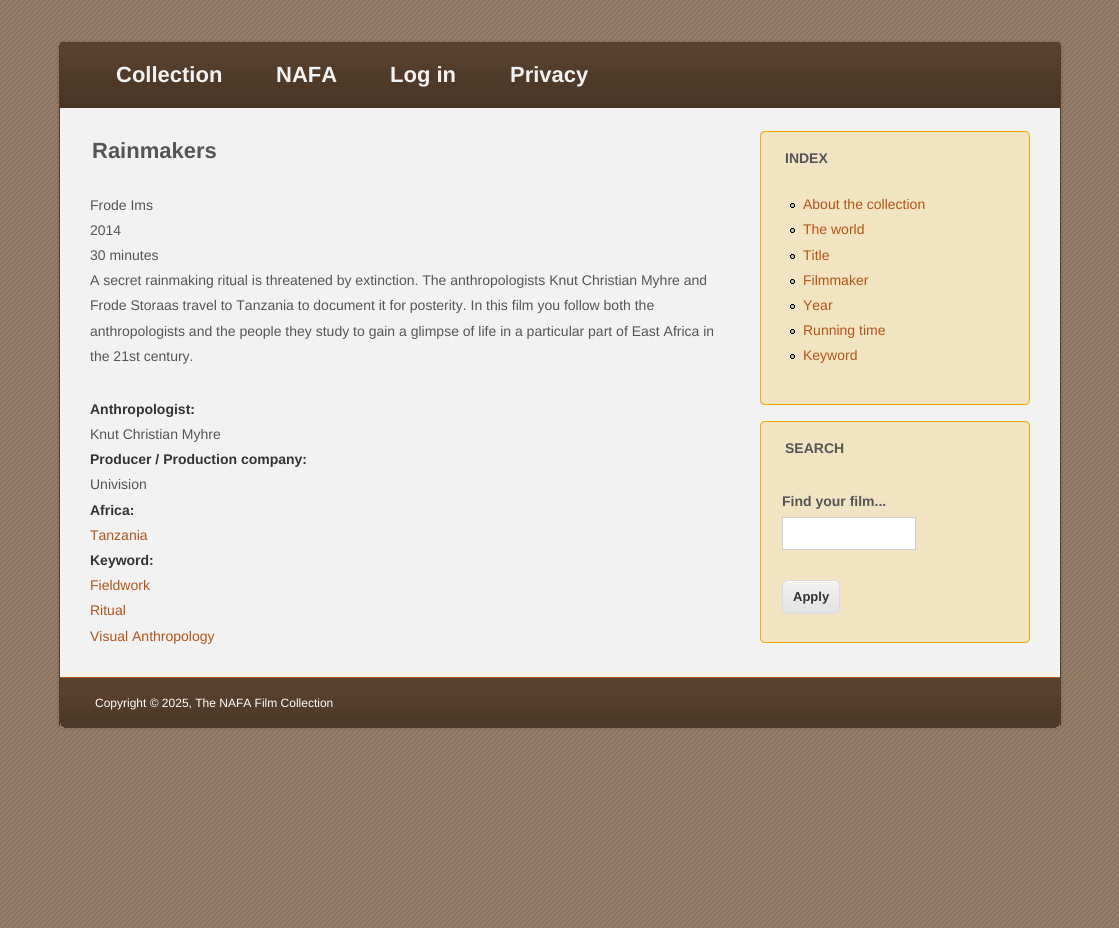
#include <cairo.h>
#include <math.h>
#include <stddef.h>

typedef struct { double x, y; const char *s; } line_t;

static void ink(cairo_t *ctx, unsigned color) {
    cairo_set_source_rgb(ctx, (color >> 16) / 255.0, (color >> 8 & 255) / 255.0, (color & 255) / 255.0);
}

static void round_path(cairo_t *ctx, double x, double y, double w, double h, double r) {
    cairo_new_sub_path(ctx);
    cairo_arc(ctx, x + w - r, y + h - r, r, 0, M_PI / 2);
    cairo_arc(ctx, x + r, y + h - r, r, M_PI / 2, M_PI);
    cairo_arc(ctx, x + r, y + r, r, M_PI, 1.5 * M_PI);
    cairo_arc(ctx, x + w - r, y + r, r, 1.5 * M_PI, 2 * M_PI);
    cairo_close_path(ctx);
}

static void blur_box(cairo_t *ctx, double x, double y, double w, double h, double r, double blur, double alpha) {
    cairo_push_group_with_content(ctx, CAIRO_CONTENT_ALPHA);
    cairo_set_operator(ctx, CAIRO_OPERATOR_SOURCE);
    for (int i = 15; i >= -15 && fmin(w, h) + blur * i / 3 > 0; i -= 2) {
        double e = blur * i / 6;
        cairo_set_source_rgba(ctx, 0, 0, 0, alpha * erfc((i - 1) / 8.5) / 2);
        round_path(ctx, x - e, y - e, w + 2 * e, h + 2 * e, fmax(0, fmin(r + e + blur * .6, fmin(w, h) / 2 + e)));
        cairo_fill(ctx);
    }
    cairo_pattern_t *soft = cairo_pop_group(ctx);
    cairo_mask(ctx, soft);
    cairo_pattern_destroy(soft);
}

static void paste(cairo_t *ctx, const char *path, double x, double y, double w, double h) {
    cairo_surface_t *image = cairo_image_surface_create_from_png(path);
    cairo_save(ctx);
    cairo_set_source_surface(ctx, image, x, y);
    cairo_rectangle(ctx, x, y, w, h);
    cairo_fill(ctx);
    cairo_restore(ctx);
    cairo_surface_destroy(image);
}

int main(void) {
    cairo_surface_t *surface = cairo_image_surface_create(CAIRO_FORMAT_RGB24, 1119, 928);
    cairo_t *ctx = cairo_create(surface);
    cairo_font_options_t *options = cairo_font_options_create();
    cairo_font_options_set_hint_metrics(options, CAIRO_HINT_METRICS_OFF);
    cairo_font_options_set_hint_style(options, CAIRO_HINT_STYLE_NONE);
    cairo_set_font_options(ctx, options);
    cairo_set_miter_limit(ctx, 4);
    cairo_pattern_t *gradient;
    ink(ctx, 0x967D67);
    cairo_paint(ctx);
    paste(ctx, "media/1.png", 0, 0, 1119, 928);
    ink(ctx, 0x000000);
    blur_box(ctx, 59, 42, 1002, 686, 5, 2, 0.2);
    ink(ctx, 0xEEEEEE);
    cairo_new_path(ctx);
    cairo_move_to(ctx, 64, 42);
    cairo_line_to(ctx, 1056, 42);
    cairo_curve_to(ctx, 1058, 42, 1060, 44, 1060, 47);
    cairo_line_to(ctx, 1060, 723);
    cairo_curve_to(ctx, 1060, 726, 1058, 728, 1056, 728);
    cairo_line_to(ctx, 64, 728);
    cairo_curve_to(ctx, 62, 728, 60, 726, 60, 723);
    cairo_line_to(ctx, 60, 47);
    cairo_curve_to(ctx, 60, 44, 62, 42, 64, 42);
    cairo_close_path(ctx);
    cairo_fill(ctx);
    ink(ctx, 0x533D29);
    cairo_rectangle(ctx, 1060, 45, 1, 681);
    cairo_fill(ctx);
    cairo_rectangle(ctx, 59, 45, 1, 681);
    cairo_fill(ctx);
    ink(ctx, 0xF2F2F2);
    round_path(ctx, 60, 42, 1000, 68, 5);
    cairo_fill(ctx);
    paste(ctx, "media/2.png", 60, 42, 1000, 66);
    cairo_select_font_face(ctx, "Liberation Sans", CAIRO_FONT_SLANT_NORMAL, CAIRO_FONT_WEIGHT_BOLD);
    cairo_set_font_size(ctx, 22);
    {
        static const line_t items[] = {
            {116, 82, "Collection"},
            {276, 82, "NAFA"},
            {390, 82, "Log in"},
            {510, 82, "Privacy"},
        };
        for (size_t i = 0; i < sizeof items / sizeof *items; i++) {
            cairo_move_to(ctx, items[i].x, items[i].y);
            cairo_show_text(ctx, items[i].s);
        }
    }
    cairo_rectangle(ctx, 60, 110, 1000, 567);
    cairo_fill(ctx);
    ink(ctx, 0x555555);
    cairo_move_to(ctx, 92, 158);
    cairo_show_text(ctx, "Rainmakers");
    cairo_select_font_face(ctx, "Liberation Sans", CAIRO_FONT_SLANT_NORMAL, CAIRO_FONT_WEIGHT_NORMAL);
    cairo_set_font_size(ctx, 14);
    {
        static const line_t items[] = {
            {90, 210, "Frode Ims"},
            {90, 235, "2014"},
            {90, 260, "30 minutes"},
            {90, 285, "A secret rainmaking ritual is threatened by extinction. The anthropologists Knut Christian Myhre and"},
            {90, 310, "Frode Storaas travel to Tanzania to document it for posterity. In this film you follow both the"},
            {90, 336, "anthropologists and the people they study to gain a glimpse of life in a particular part of East Africa in"},
            {90, 361, "the 21st century."},
        };
        for (size_t i = 0; i < sizeof items / sizeof *items; i++) {
            cairo_move_to(ctx, items[i].x, items[i].y);
            cairo_show_text(ctx, items[i].s);
        }
    }
    cairo_select_font_face(ctx, "Liberation Sans", CAIRO_FONT_SLANT_NORMAL, CAIRO_FONT_WEIGHT_BOLD);
    ink(ctx, 0x333333);
    cairo_move_to(ctx, 90, 414);
    cairo_show_text(ctx, "Anthropologist:");
    cairo_select_font_face(ctx, "Liberation Sans", CAIRO_FONT_SLANT_NORMAL, CAIRO_FONT_WEIGHT_NORMAL);
    ink(ctx, 0x555555);
    cairo_move_to(ctx, 90, 439);
    cairo_show_text(ctx, "Knut Christian Myhre");
    cairo_select_font_face(ctx, "Liberation Sans", CAIRO_FONT_SLANT_NORMAL, CAIRO_FONT_WEIGHT_BOLD);
    ink(ctx, 0x333333);
    cairo_move_to(ctx, 90, 464);
    cairo_show_text(ctx, "Producer / Production company:");
    cairo_select_font_face(ctx, "Liberation Sans", CAIRO_FONT_SLANT_NORMAL, CAIRO_FONT_WEIGHT_NORMAL);
    ink(ctx, 0x555555);
    cairo_move_to(ctx, 90, 489);
    cairo_show_text(ctx, "Univision");
    cairo_select_font_face(ctx, "Liberation Sans", CAIRO_FONT_SLANT_NORMAL, CAIRO_FONT_WEIGHT_BOLD);
    ink(ctx, 0x333333);
    cairo_move_to(ctx, 90, 515);
    cairo_show_text(ctx, "Africa:");
    cairo_select_font_face(ctx, "Liberation Sans", CAIRO_FONT_SLANT_NORMAL, CAIRO_FONT_WEIGHT_NORMAL);
    ink(ctx, 0xB15419);
    cairo_move_to(ctx, 90, 540);
    cairo_show_text(ctx, "Tanzania");
    cairo_select_font_face(ctx, "Liberation Sans", CAIRO_FONT_SLANT_NORMAL, CAIRO_FONT_WEIGHT_BOLD);
    ink(ctx, 0x333333);
    cairo_move_to(ctx, 90, 565);
    cairo_show_text(ctx, "Keyword:");
    cairo_select_font_face(ctx, "Liberation Sans", CAIRO_FONT_SLANT_NORMAL, CAIRO_FONT_WEIGHT_NORMAL);
    ink(ctx, 0xB15419);
    {
        static const line_t items[] = {
            {90, 590, "Fieldwork"},
            {90, 615, "Ritual"},
            {90, 641, "Visual Anthropology"},
        };
        for (size_t i = 0; i < sizeof items / sizeof *items; i++) {
            cairo_move_to(ctx, items[i].x, items[i].y);
            cairo_show_text(ctx, items[i].s);
        }
    }
    ink(ctx, 0xF2E4C2);
    round_path(ctx, 760.5, 131.5, 269, 273, 4.5);
    cairo_fill_preserve(ctx);
    ink(ctx, 0xF2A900);
    cairo_set_line_width(ctx, 1);
    cairo_stroke(ctx);
    cairo_select_font_face(ctx, "Liberation Sans", CAIRO_FONT_SLANT_NORMAL, CAIRO_FONT_WEIGHT_BOLD);
    ink(ctx, 0x555555);
    cairo_move_to(ctx, 785, 163);
    cairo_show_text(ctx, "INDEX");
    paste(ctx, "media/3.png", 790, 203, 5, 5);
    cairo_select_font_face(ctx, "Liberation Sans", CAIRO_FONT_SLANT_NORMAL, CAIRO_FONT_WEIGHT_NORMAL);
    ink(ctx, 0xB15419);
    cairo_move_to(ctx, 803, 209);
    cairo_show_text(ctx, "About the collection");
    paste(ctx, "media/3.png", 790, 228, 5, 5);
    cairo_move_to(ctx, 803, 234);
    cairo_show_text(ctx, "The world");
    paste(ctx, "media/3.png", 790, 254, 5, 5);
    cairo_move_to(ctx, 803, 260);
    cairo_show_text(ctx, "Title");
    paste(ctx, "media/3.png", 790, 279, 5, 5);
    cairo_move_to(ctx, 803, 285);
    cairo_show_text(ctx, "Filmmaker");
    paste(ctx, "media/3.png", 790, 304, 5, 5);
    cairo_move_to(ctx, 803, 310);
    cairo_show_text(ctx, "Year");
    paste(ctx, "media/3.png", 790, 329, 5, 5);
    cairo_move_to(ctx, 803, 335);
    cairo_show_text(ctx, "Running time");
    paste(ctx, "media/3.png", 790, 354, 5, 5);
    cairo_move_to(ctx, 803, 360);
    cairo_show_text(ctx, "Keyword");
    ink(ctx, 0xF2E4C2);
    round_path(ctx, 760.5, 421.5, 269, 221, 4.5);
    cairo_fill_preserve(ctx);
    ink(ctx, 0xF2A900);
    cairo_stroke(ctx);
    cairo_select_font_face(ctx, "Liberation Sans", CAIRO_FONT_SLANT_NORMAL, CAIRO_FONT_WEIGHT_BOLD);
    ink(ctx, 0x555555);
    cairo_move_to(ctx, 785, 453);
    cairo_show_text(ctx, "SEARCH");
    cairo_move_to(ctx, 782, 506);
    cairo_show_text(ctx, "Find your film...");
    ink(ctx, 0xFFFFFF);
    cairo_rectangle(ctx, 782.5, 517.5, 133, 32);
    cairo_fill_preserve(ctx);
    ink(ctx, 0xCCCCCC);
    cairo_stroke(ctx);
    cairo_save(ctx);
    round_path(ctx, 782, 580, 58, 34, 6);
    cairo_clip(ctx);
    gradient = cairo_pattern_create_linear(811, 581, 811, 613);
    cairo_pattern_add_color_stop_rgba(gradient, 0, 0.949, 0.949, 0.949, 1);
    cairo_pattern_add_color_stop_rgba(gradient, 1, 0.89, 0.89, 0.89, 1);
    cairo_set_source(ctx, gradient);
    cairo_pattern_destroy(gradient);
    cairo_rectangle(ctx, 782, 581, 58, 32);
    cairo_fill(ctx);
    cairo_restore(ctx);
    ink(ctx, 0xFFFFFF);
    cairo_new_path(ctx);
    cairo_move_to(ctx, 788, 582);
    cairo_line_to(ctx, 834, 582);
    cairo_curve_to(ctx, 837, 582, 839, 584, 839, 587);
    cairo_curve_to(ctx, 839, 579, 832, 581, 826, 581);
    cairo_line_to(ctx, 796, 581);
    cairo_curve_to(ctx, 790, 581, 783, 579, 783, 587);
    cairo_curve_to(ctx, 783, 584, 785, 582, 788, 582);
    cairo_close_path(ctx);
    cairo_fill(ctx);
    round_path(ctx, 782.5, 580.5, 57, 33, 5.5);
    ink(ctx, 0xDBDBDB);
    cairo_stroke(ctx);
    cairo_set_font_size(ctx, 13);
    ink(ctx, 0x333333);
    cairo_move_to(ctx, 793, 601);
    cairo_show_text(ctx, "Apply");
    ink(ctx, 0xB15419);
    cairo_rectangle(ctx, 60, 677, 1000, 1);
    cairo_fill(ctx);
    paste(ctx, "media/4.png", 60, 678, 1000, 50);
    cairo_select_font_face(ctx, "Liberation Sans", CAIRO_FONT_SLANT_NORMAL, CAIRO_FONT_WEIGHT_NORMAL);
    cairo_set_font_size(ctx, 12);
    ink(ctx, 0xFFFFFF);
    cairo_move_to(ctx, 95, 707);
    cairo_show_text(ctx, "Copyright © 2025, The NAFA Film Collection");
    cairo_surface_write_to_png(surface, "image.png");
    cairo_font_options_destroy(options);
    cairo_destroy(ctx);
    cairo_surface_destroy(surface);
    return 0;
}
